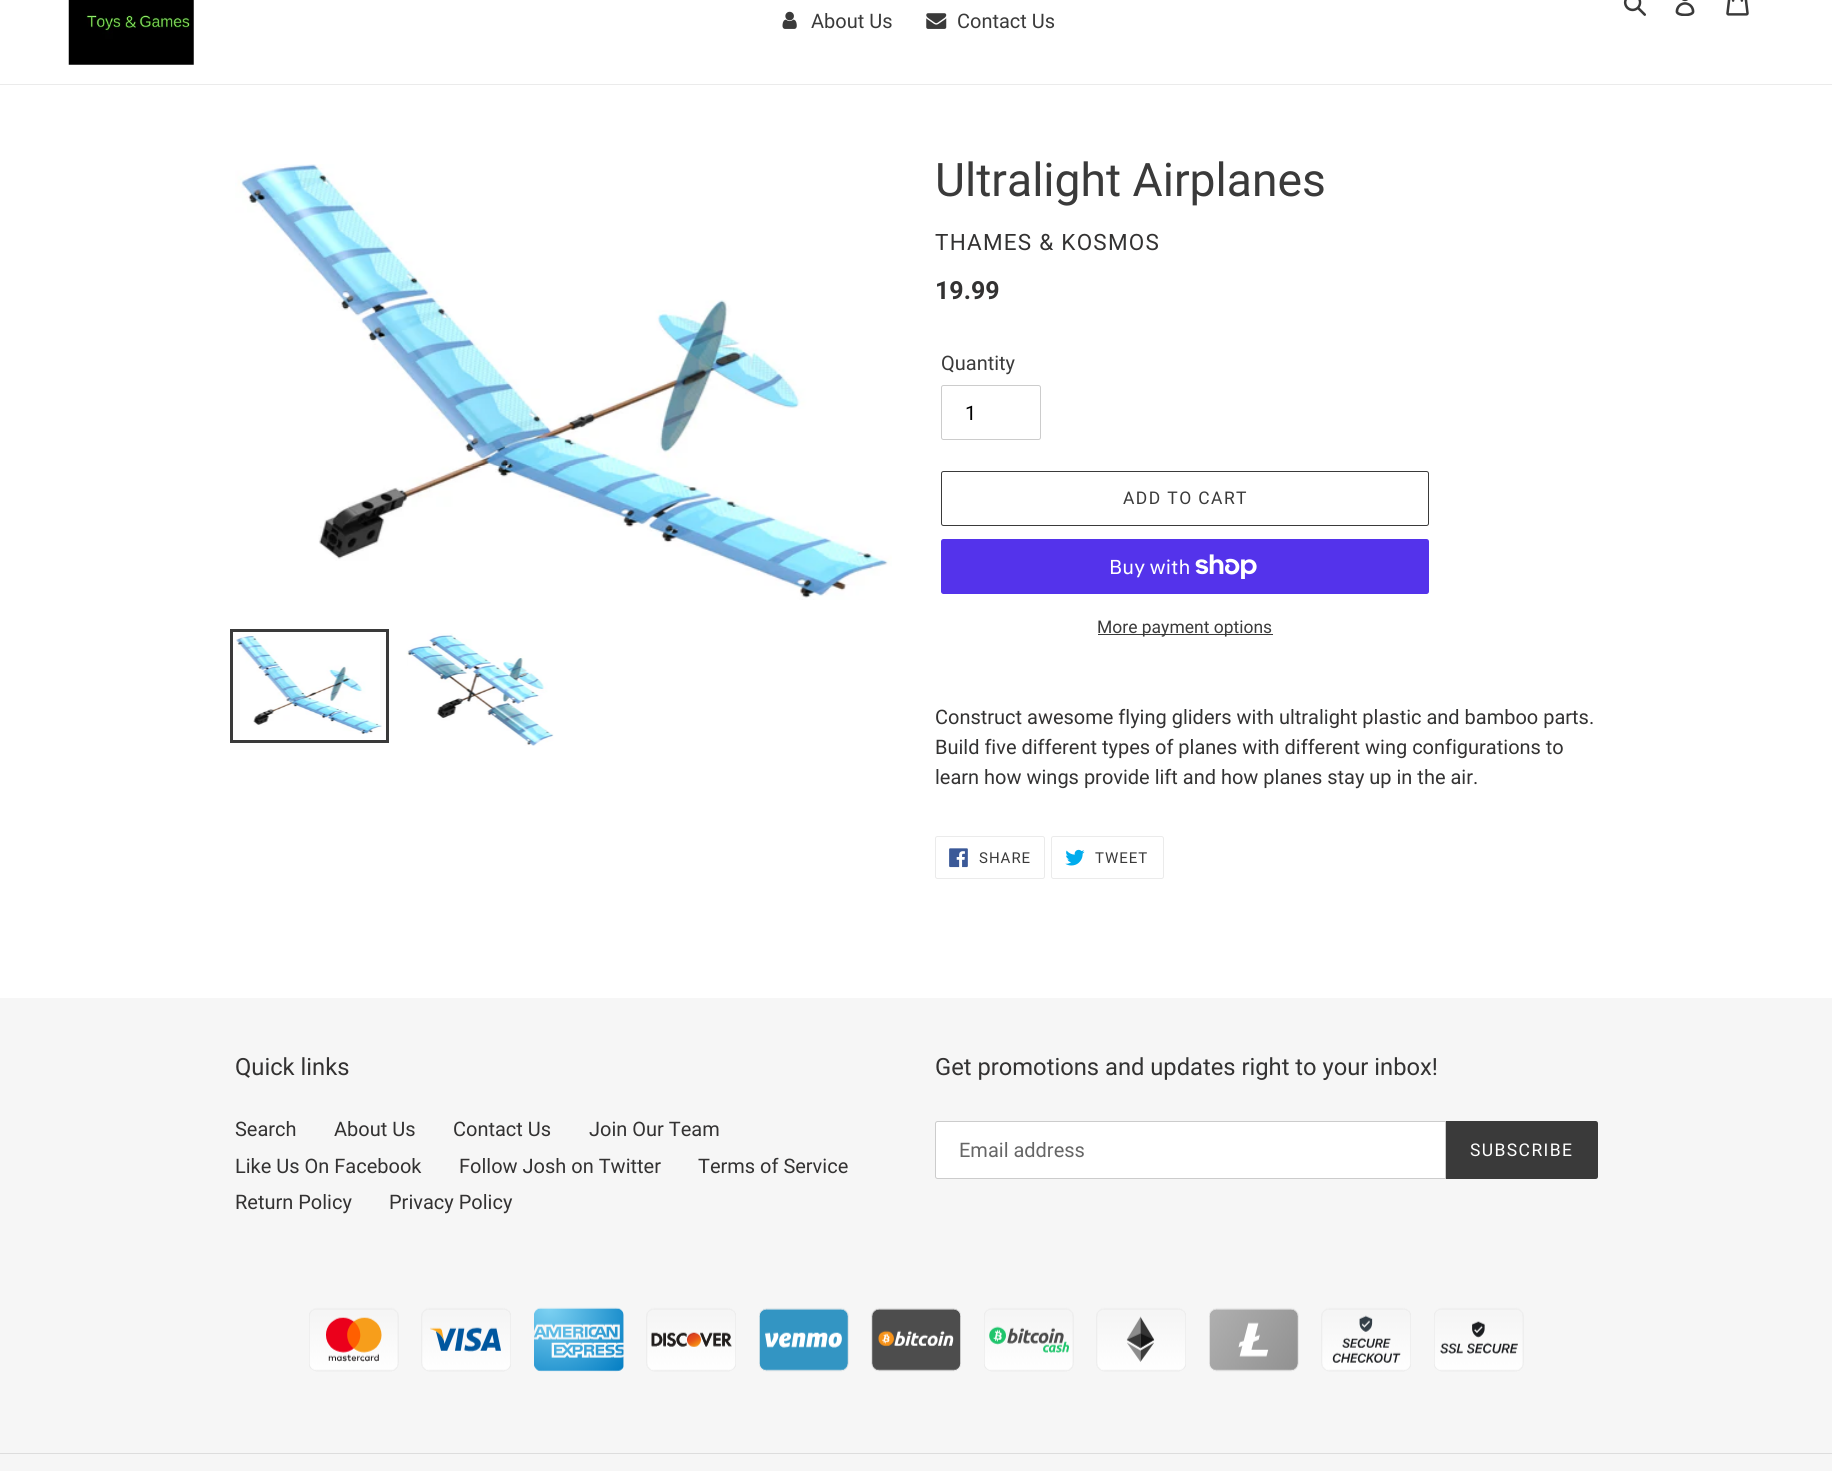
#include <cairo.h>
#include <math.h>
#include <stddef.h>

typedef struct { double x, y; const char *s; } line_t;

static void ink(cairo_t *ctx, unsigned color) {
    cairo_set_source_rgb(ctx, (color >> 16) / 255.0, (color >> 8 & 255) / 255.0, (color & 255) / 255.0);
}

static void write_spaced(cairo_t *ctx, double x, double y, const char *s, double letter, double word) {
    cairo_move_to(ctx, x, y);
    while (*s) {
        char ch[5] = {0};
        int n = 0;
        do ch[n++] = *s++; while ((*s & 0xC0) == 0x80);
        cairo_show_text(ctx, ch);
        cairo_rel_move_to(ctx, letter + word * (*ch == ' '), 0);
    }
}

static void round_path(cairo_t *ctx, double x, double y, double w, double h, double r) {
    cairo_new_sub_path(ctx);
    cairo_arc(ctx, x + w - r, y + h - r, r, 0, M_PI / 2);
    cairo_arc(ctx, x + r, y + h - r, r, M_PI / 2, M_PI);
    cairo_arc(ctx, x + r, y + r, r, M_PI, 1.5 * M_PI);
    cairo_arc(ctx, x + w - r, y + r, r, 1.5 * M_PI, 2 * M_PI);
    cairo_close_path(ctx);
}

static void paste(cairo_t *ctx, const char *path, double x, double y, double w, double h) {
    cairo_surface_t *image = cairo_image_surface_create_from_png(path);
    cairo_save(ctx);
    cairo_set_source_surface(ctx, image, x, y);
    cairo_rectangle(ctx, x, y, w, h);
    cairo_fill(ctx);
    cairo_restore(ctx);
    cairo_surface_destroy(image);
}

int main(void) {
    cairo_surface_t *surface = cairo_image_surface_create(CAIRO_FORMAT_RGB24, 1832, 1471);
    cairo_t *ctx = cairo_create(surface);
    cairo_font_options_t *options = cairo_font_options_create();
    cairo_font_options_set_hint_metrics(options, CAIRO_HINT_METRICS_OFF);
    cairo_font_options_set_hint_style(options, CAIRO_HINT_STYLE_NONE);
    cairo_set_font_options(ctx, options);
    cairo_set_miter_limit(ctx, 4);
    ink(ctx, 0xFFFFFF);
    cairo_paint(ctx);
    ink(ctx, 0xEBEBEB);
    cairo_rectangle(ctx, 0, 84, 1832, 1);
    cairo_fill(ctx);
    paste(ctx, "media/1.png", 68, 0, 126, 65);
    paste(ctx, "media/2.png", 1623, 0, 23, 16);
    paste(ctx, "media/3.png", 1675, 0, 20, 16);
    paste(ctx, "media/4.png", 1726, 0, 23, 16);
    paste(ctx, "media/5.png", 782, 11, 15, 18);
    cairo_select_font_face(ctx, "Roboto", CAIRO_FONT_SLANT_NORMAL, CAIRO_FONT_WEIGHT_NORMAL);
    cairo_set_font_size(ctx, 20);
    ink(ctx, 0x3A3A3A);
    cairo_move_to(ctx, 811, 28);
    cairo_show_text(ctx, "About Us");
    paste(ctx, "media/6.png", 926, 13, 21, 16);
    cairo_move_to(ctx, 957, 28);
    cairo_show_text(ctx, "Contact Us");
    paste(ctx, "media/7.png", 235, 164, 657, 436);
    cairo_rectangle(ctx, 231.5, 630.5, 156, 111);
    cairo_set_line_width(ctx, 3);
    cairo_stroke(ctx);
    paste(ctx, "media/8.png", 236, 634, 146, 100);
    paste(ctx, "media/9.png", 406, 633, 148, 113);
    cairo_set_font_size(ctx, 46.25);
    cairo_move_to(ctx, 935, 196);
    cairo_show_text(ctx, "Ultralight Airplanes");
    cairo_set_font_size(ctx, 22.5);
    ink(ctx, 0x333232);
    write_spaced(ctx, 935, 250, "THAMES & KOSMOS", 1.25, 0);
    cairo_select_font_face(ctx, "Roboto", CAIRO_FONT_SLANT_NORMAL, CAIRO_FONT_WEIGHT_BOLD);
    cairo_set_font_size(ctx, 25);
    cairo_move_to(ctx, 935, 299);
    cairo_show_text(ctx, "19.99");
    cairo_select_font_face(ctx, "Roboto", CAIRO_FONT_SLANT_NORMAL, CAIRO_FONT_WEIGHT_NORMAL);
    cairo_set_font_size(ctx, 20);
    ink(ctx, 0x3A3A3A);
    cairo_move_to(ctx, 941, 370);
    cairo_show_text(ctx, "Quantity");
    round_path(ctx, 941.5, 385.5, 99, 54, 2);
    ink(ctx, 0xCCCCCC);
    cairo_set_line_width(ctx, 1);
    cairo_stroke(ctx);
    ink(ctx, 0x000000);
    cairo_move_to(ctx, 965, 420);
    cairo_show_text(ctx, "1");
    round_path(ctx, 941.5, 471.5, 487, 54, 2);
    ink(ctx, 0x3A3A3A);
    cairo_stroke(ctx);
    cairo_set_font_size(ctx, 17.5);
    write_spaced(ctx, 1123, 504, "ADD TO CART", 1.4, 0);
    ink(ctx, 0x5433EB);
    round_path(ctx, 941, 539, 488, 55, 2.5);
    cairo_fill(ctx);
    cairo_select_font_face(ctx, "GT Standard", CAIRO_FONT_SLANT_NORMAL, CAIRO_FONT_WEIGHT_NORMAL);
    cairo_set_font_size(ctx, 20);
    ink(ctx, 0xFFFFFF);
    cairo_move_to(ctx, 1109, 574);
    cairo_show_text(ctx, "Buy with");
    paste(ctx, "media/10.png", 1195, 554, 62, 25);
    ink(ctx, 0x3A3A3A);
    cairo_rectangle(ctx, 1098, 634, 175, 1);
    cairo_fill(ctx);
    cairo_select_font_face(ctx, "Roboto", CAIRO_FONT_SLANT_NORMAL, CAIRO_FONT_WEIGHT_NORMAL);
    cairo_set_font_size(ctx, 17.5);
    cairo_move_to(ctx, 1097, 633);
    cairo_show_text(ctx, "More payment options");
    cairo_set_font_size(ctx, 20);
    ink(ctx, 0x333232);
    {
        static const line_t items[] = {
            {935, 724, "Construct awesome flying gliders with ultralight plastic and bamboo parts."},
            {935, 754, "Build five different types of planes with different wing configurations to"},
            {935, 784, "learn how wings provide lift and how planes stay up in the air."},
        };
        for (size_t i = 0; i < sizeof items / sizeof *items; i++) {
            cairo_move_to(ctx, items[i].x, items[i].y);
            cairo_show_text(ctx, items[i].s);
        }
    }
    round_path(ctx, 935.5, 836.5, 109, 42, 2);
    ink(ctx, 0xEBEBEB);
    cairo_stroke(ctx);
    paste(ctx, "media/11.png", 949, 848, 19, 20);
    cairo_set_font_size(ctx, 15);
    ink(ctx, 0x3A3A3A);
    write_spaced(ctx, 979, 863, "SHARE", 1, 0);
    round_path(ctx, 1051.5, 836.5, 112, 42, 2);
    ink(ctx, 0xEBEBEB);
    cairo_stroke(ctx);
    paste(ctx, "media/12.png", 1065, 849, 20, 17);
    ink(ctx, 0x3A3A3A);
    write_spaced(ctx, 1095, 863, "TWEET", 1, 0);
    ink(ctx, 0xF6F6F6);
    cairo_rectangle(ctx, 0, 998, 1832, 473);
    cairo_fill(ctx);
    cairo_set_font_size(ctx, 23.75);
    ink(ctx, 0x333232);
    cairo_move_to(ctx, 235, 1075);
    cairo_show_text(ctx, "Quick links");
    cairo_set_font_size(ctx, 20);
    {
        static const line_t items[] = {
            {235, 1136, "Search"},
            {334, 1136, "About Us"},
            {453, 1136, "Contact Us"},
            {589, 1136, "Join Our Team"},
            {235, 1173, "Like Us On Facebook"},
            {459, 1173, "Follow Josh on Twitter"},
            {698, 1173, "Terms of Service"},
            {235, 1209, "Return Policy"},
            {389, 1209, "Privacy Policy"},
        };
        for (size_t i = 0; i < sizeof items / sizeof *items; i++) {
            cairo_move_to(ctx, items[i].x, items[i].y);
            cairo_show_text(ctx, items[i].s);
        }
    }
    cairo_set_font_size(ctx, 23.75);
    cairo_move_to(ctx, 935, 1075);
    cairo_show_text(ctx, "Get promotions and updates right to your inbox!");
    ink(ctx, 0xFFFFFF);
    cairo_new_path(ctx);
    cairo_move_to(ctx, 937.5, 1121.5);
    cairo_line_to(ctx, 1445.5, 1121.5);
    cairo_line_to(ctx, 1445.5, 1178.5);
    cairo_line_to(ctx, 937.5, 1178.5);
    cairo_curve_to(ctx, 936.5, 1178.5, 935.5, 1177.5, 935.5, 1176.5);
    cairo_line_to(ctx, 935.5, 1123.5);
    cairo_curve_to(ctx, 935.5, 1122.5, 936.5, 1121.5, 937.5, 1121.5);
    cairo_close_path(ctx);
    cairo_fill_preserve(ctx);
    ink(ctx, 0xCCCCCC);
    cairo_stroke(ctx);
    cairo_set_font_size(ctx, 20);
    ink(ctx, 0x666666);
    cairo_move_to(ctx, 959, 1157);
    cairo_show_text(ctx, "Email address");
    ink(ctx, 0x3A3A3A);
    cairo_new_path(ctx);
    cairo_move_to(ctx, 1446, 1121);
    cairo_line_to(ctx, 1595.5, 1121);
    cairo_curve_to(ctx, 1597, 1121, 1598, 1122, 1598, 1123.5);
    cairo_line_to(ctx, 1598, 1176.5);
    cairo_curve_to(ctx, 1598, 1178, 1597, 1179, 1595.5, 1179);
    cairo_line_to(ctx, 1446, 1179);
    cairo_close_path(ctx);
    cairo_fill(ctx);
    cairo_set_font_size(ctx, 17.5);
    ink(ctx, 0xFFFFFF);
    write_spaced(ctx, 1470, 1156, "SUBSCRIBE", 1.4, 0);
    paste(ctx, "media/13.png", 309, 1307, 1215, 65);
    ink(ctx, 0xDDDDDD);
    cairo_rectangle(ctx, 0, 1453, 1832, 1);
    cairo_fill(ctx);
    cairo_surface_write_to_png(surface, "image.png");
    cairo_font_options_destroy(options);
    cairo_destroy(ctx);
    cairo_surface_destroy(surface);
    return 0;
}
